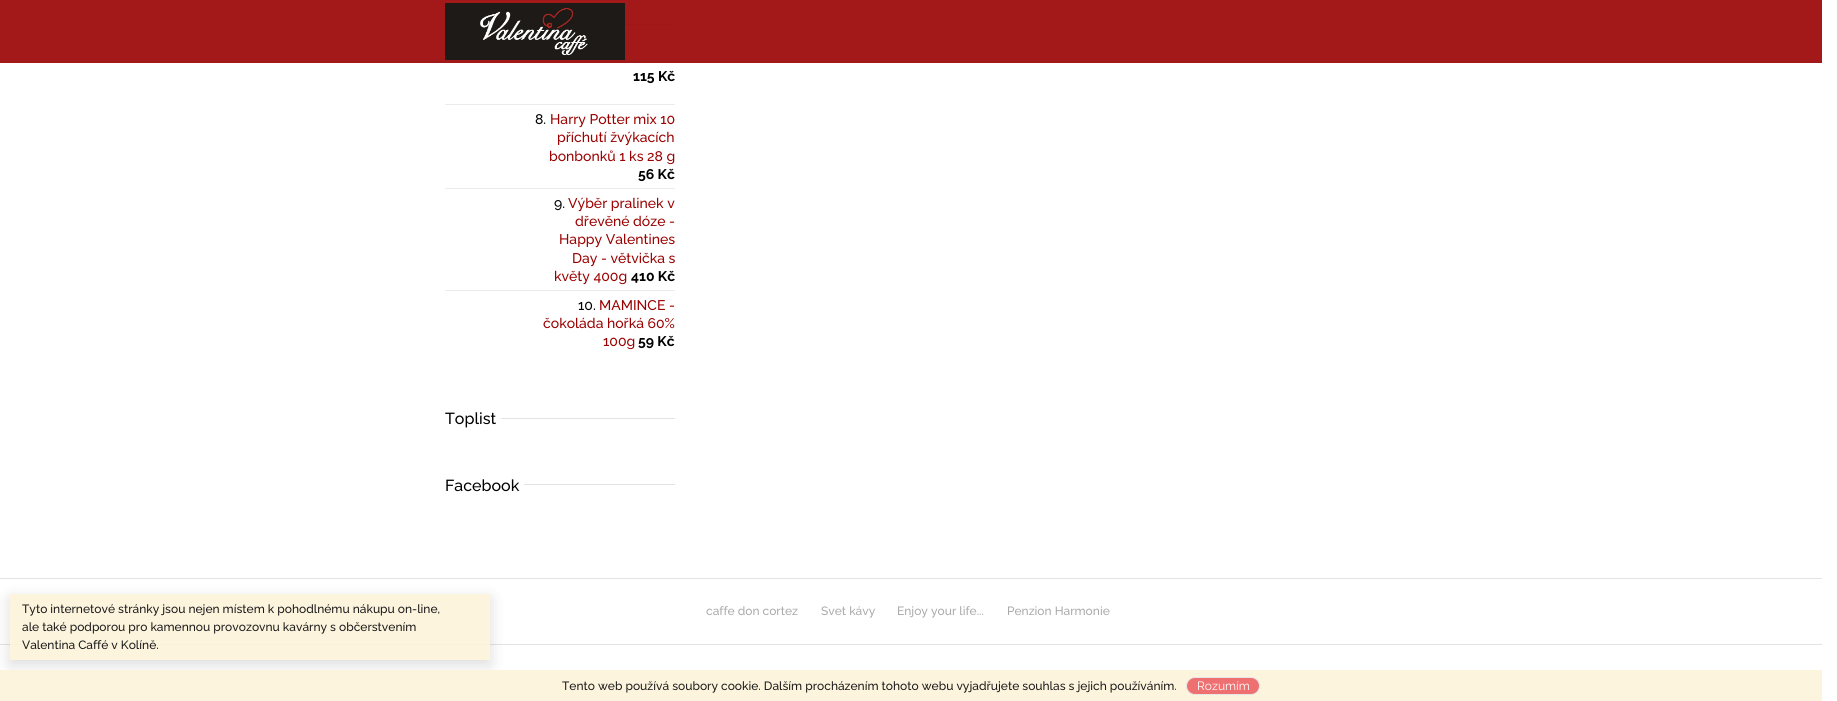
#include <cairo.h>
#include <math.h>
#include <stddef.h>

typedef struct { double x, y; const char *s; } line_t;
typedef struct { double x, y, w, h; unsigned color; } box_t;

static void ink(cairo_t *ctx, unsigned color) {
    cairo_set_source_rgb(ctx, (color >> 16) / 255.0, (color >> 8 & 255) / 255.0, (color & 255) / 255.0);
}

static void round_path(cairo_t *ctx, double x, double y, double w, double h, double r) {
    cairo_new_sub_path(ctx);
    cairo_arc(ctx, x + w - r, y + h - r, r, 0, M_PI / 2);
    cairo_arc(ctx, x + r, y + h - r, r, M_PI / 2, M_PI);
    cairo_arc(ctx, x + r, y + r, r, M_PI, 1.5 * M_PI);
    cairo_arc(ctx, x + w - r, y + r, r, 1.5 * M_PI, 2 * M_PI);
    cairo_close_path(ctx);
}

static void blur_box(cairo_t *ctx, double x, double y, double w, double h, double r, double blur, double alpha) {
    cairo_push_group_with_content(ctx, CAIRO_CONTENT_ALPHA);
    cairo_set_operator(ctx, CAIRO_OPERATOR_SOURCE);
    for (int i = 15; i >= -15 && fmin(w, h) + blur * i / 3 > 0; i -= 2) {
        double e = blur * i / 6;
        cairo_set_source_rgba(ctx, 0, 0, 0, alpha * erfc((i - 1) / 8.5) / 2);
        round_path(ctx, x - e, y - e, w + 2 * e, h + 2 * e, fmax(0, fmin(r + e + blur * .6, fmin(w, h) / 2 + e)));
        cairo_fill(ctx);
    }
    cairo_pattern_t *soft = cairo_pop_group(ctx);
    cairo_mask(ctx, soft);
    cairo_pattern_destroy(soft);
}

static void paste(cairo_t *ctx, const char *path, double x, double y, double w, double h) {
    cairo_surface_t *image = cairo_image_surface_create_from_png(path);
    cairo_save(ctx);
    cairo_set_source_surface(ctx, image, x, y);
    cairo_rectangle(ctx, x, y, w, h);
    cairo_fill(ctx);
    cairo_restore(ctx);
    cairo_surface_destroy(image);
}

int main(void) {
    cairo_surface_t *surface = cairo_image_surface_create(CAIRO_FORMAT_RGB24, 1837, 701);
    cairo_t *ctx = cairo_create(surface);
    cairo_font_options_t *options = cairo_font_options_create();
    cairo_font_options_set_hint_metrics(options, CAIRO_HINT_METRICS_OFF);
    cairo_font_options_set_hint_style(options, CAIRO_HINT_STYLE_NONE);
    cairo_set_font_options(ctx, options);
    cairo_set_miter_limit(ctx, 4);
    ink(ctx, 0xFFFFFF);
    cairo_paint(ctx);
    ink(ctx, 0xFDF4DE);
    cairo_rectangle(ctx, 10, 594, 480, 66);
    cairo_fill(ctx);
    ink(ctx, 0xEBEBEB);
    cairo_rectangle(ctx, 625, 24, 50, 1);
    cairo_fill(ctx);
    cairo_set_source_rgba(ctx, 0.6, 0, 0, 0.9);
    cairo_rectangle(ctx, 0, 0, 1822, 63);
    cairo_fill(ctx);
    paste(ctx, "media/1.png", 445, 3, 180, 57);
    ink(ctx, 0xEBEBEB);
    cairo_rectangle(ctx, 445, 104, 230, 1);
    cairo_fill(ctx);
    cairo_select_font_face(ctx, "Raleway", CAIRO_FONT_SLANT_NORMAL, CAIRO_FONT_WEIGHT_BOLD);
    cairo_set_font_size(ctx, 14);
    ink(ctx, 0x000000);
    cairo_move_to(ctx, 633, 81);
    cairo_show_text(ctx, "115 Kč");
    ink(ctx, 0xEBEBEB);
    cairo_rectangle(ctx, 445, 188, 230, 1);
    cairo_fill(ctx);
    cairo_select_font_face(ctx, "Raleway Medium", CAIRO_FONT_SLANT_NORMAL, CAIRO_FONT_WEIGHT_NORMAL);
    ink(ctx, 0x000000);
    cairo_move_to(ctx, 535, 124);
    cairo_show_text(ctx, "8.");
    ink(ctx, 0x9A0000);
    {
        static const line_t items[] = {
            {550, 124, "Harry Potter mix 10"},
            {557, 142, "příchutí žvýkacích"},
            {549, 161, "bonbonků 1 ks 28 g"},
        };
        for (size_t i = 0; i < sizeof items / sizeof *items; i++) {
            cairo_move_to(ctx, items[i].x, items[i].y);
            cairo_show_text(ctx, items[i].s);
        }
    }
    cairo_select_font_face(ctx, "Raleway", CAIRO_FONT_SLANT_NORMAL, CAIRO_FONT_WEIGHT_BOLD);
    ink(ctx, 0x000000);
    cairo_move_to(ctx, 638, 179);
    cairo_show_text(ctx, "56 Kč");
    ink(ctx, 0xEBEBEB);
    cairo_rectangle(ctx, 445, 290, 230, 1);
    cairo_fill(ctx);
    cairo_select_font_face(ctx, "Raleway Medium", CAIRO_FONT_SLANT_NORMAL, CAIRO_FONT_WEIGHT_NORMAL);
    ink(ctx, 0x000000);
    cairo_move_to(ctx, 554, 208);
    cairo_show_text(ctx, "9.");
    ink(ctx, 0x9A0000);
    {
        static const line_t items[] = {
            {568, 208, "Výběr pralinek v"},
            {575, 226, "dřevěné dóze -"},
            {559, 244, "Happy Valentines"},
            {572, 263, "Day - větvička s"},
            {554, 281, "květy 400g"},
        };
        for (size_t i = 0; i < sizeof items / sizeof *items; i++) {
            cairo_move_to(ctx, items[i].x, items[i].y);
            cairo_show_text(ctx, items[i].s);
        }
    }
    cairo_select_font_face(ctx, "Raleway", CAIRO_FONT_SLANT_NORMAL, CAIRO_FONT_WEIGHT_BOLD);
    ink(ctx, 0x000000);
    cairo_move_to(ctx, 631, 281);
    cairo_show_text(ctx, "410 Kč");
    cairo_select_font_face(ctx, "Raleway Medium", CAIRO_FONT_SLANT_NORMAL, CAIRO_FONT_WEIGHT_NORMAL);
    cairo_move_to(ctx, 578, 310);
    cairo_show_text(ctx, "10.");
    ink(ctx, 0x9A0000);
    {
        static const line_t items[] = {
            {599, 310, "MAMINCE -"},
            {543, 328, "čokoláda hořká 60%"},
            {603, 346, "100g"},
        };
        for (size_t i = 0; i < sizeof items / sizeof *items; i++) {
            cairo_move_to(ctx, items[i].x, items[i].y);
            cairo_show_text(ctx, items[i].s);
        }
    }
    cairo_select_font_face(ctx, "Raleway", CAIRO_FONT_SLANT_NORMAL, CAIRO_FONT_WEIGHT_BOLD);
    ink(ctx, 0x000000);
    cairo_move_to(ctx, 638, 346);
    cairo_show_text(ctx, "59 Kč");
    cairo_select_font_face(ctx, "Raleway Medium", CAIRO_FONT_SLANT_NORMAL, CAIRO_FONT_WEIGHT_NORMAL);
    cairo_set_font_size(ctx, 16);
    cairo_move_to(ctx, 445, 424);
    cairo_show_text(ctx, "Toplist");
    ink(ctx, 0xE3E3E3);
    cairo_rectangle(ctx, 501, 418, 174, 1);
    cairo_fill(ctx);
    ink(ctx, 0x000000);
    cairo_move_to(ctx, 445, 491);
    cairo_show_text(ctx, "Facebook");
    {
        static const box_t items[] = {
            {524, 484, 151, 1, 0xE3E3E3},
            {0, 578, 1822, 1, 0xE3E3E3},
            {0, 644, 1822, 1, 0xE3E3E3},
            {10, 644, 480, 1, 0xFAF1DB},
        };
        for (size_t i = 0; i < sizeof items / sizeof *items; i++) {
            ink(ctx, items[i].color);
            cairo_rectangle(ctx, items[i].x, items[i].y, items[i].w, items[i].h);
            cairo_fill(ctx);
        }
    }
    cairo_save(ctx);
    cairo_set_fill_rule(ctx, CAIRO_FILL_RULE_EVEN_ODD);
    cairo_new_path(ctx);
    cairo_move_to(ctx, 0, 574);
    cairo_line_to(ctx, 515, 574);
    cairo_line_to(ctx, 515, 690);
    cairo_line_to(ctx, 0, 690);
    cairo_close_path(ctx);
    cairo_move_to(ctx, 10, 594);
    cairo_line_to(ctx, 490, 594);
    cairo_line_to(ctx, 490, 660);
    cairo_line_to(ctx, 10, 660);
    cairo_close_path(ctx);
    cairo_clip(ctx);
    ink(ctx, 0x000000);
    blur_box(ctx, 10, 599, 480, 66, 0, 8, 0.14);
    cairo_restore(ctx);
    cairo_set_font_size(ctx, 12);
    ink(ctx, 0x1A1A1A);
    {
        static const line_t items[] = {
            {22, 613, "Tyto internetové stránky jsou nejen místem k pohodlnému nákupu on-line,"},
            {22, 631, "ale také podporou pro kamennou provozovnu kavárny s občerstvením"},
            {22, 649, "Valentina Caffé v Kolíně."},
        };
        for (size_t i = 0; i < sizeof items / sizeof *items; i++) {
            cairo_move_to(ctx, items[i].x, items[i].y);
            cairo_show_text(ctx, items[i].s);
        }
    }
    ink(ctx, 0xAAAAAA);
    {
        static const line_t items[] = {
            {706, 615, "caffe don cortez"},
            {821, 615, "Svet kávy"},
            {897, 615, "Enjoy your life..."},
            {1007, 615, "Penzion Harmonie"},
        };
        for (size_t i = 0; i < sizeof items / sizeof *items; i++) {
            cairo_move_to(ctx, items[i].x, items[i].y);
            cairo_show_text(ctx, items[i].s);
        }
    }
    cairo_set_source_rgba(ctx, 0.992, 0.953, 0.855, 0.9);
    cairo_rectangle(ctx, 0, 670, 1822, 31);
    cairo_fill(ctx);
    ink(ctx, 0x1A1A1A);
    cairo_move_to(ctx, 562, 690);
    cairo_show_text(ctx, "Tento web používá soubory cookie. Dalším procházením tohoto webu vyjadřujete souhlas s jejich používáním.");
    ink(ctx, 0xEE7070);
    round_path(ctx, 1186.5, 677.5, 73, 17, 8.5);
    cairo_fill_preserve(ctx);
    ink(ctx, 0xE6E6E6);
    cairo_set_line_width(ctx, 1);
    cairo_stroke(ctx);
    cairo_select_font_face(ctx, "Raleway", CAIRO_FONT_SLANT_NORMAL, CAIRO_FONT_WEIGHT_NORMAL);
    ink(ctx, 0xFFFFFF);
    cairo_move_to(ctx, 1197, 690);
    cairo_show_text(ctx, "Rozumím");
    cairo_surface_write_to_png(surface, "image.png");
    cairo_font_options_destroy(options);
    cairo_destroy(ctx);
    cairo_surface_destroy(surface);
    return 0;
}
